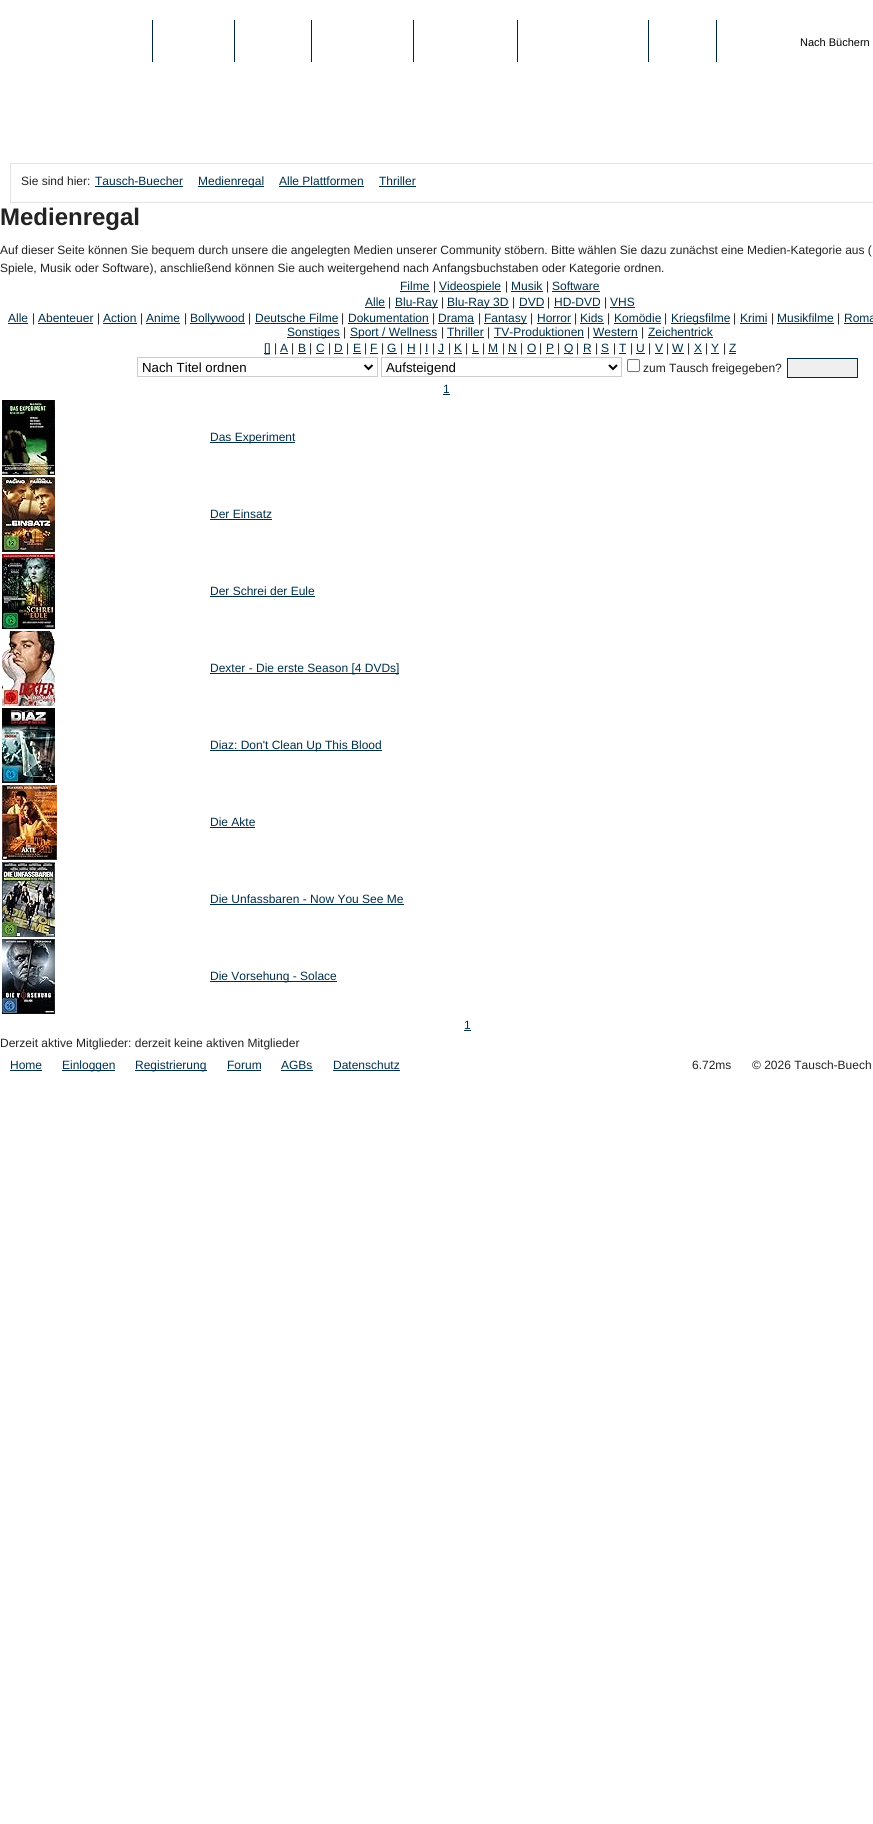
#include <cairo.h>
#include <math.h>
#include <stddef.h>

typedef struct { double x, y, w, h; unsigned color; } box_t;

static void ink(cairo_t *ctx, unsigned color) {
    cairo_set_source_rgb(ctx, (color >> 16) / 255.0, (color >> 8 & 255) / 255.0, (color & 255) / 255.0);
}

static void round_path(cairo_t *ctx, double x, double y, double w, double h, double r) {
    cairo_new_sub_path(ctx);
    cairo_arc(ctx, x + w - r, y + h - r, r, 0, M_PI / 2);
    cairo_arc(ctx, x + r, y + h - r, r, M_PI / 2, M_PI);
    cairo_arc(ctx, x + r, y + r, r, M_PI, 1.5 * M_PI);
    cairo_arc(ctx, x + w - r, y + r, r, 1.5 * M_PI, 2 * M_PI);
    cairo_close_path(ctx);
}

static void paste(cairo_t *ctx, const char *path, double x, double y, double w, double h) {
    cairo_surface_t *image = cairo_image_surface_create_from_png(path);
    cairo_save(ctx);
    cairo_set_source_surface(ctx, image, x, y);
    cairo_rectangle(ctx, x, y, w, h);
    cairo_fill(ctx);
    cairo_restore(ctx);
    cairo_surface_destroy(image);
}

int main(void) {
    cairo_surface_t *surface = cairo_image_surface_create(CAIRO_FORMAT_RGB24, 873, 1824);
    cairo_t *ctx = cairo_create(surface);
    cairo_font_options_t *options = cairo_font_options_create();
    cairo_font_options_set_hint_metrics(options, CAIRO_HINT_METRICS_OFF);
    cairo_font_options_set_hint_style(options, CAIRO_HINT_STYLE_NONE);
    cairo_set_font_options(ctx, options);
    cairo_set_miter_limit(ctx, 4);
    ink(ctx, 0xFFFFFF);
    cairo_paint(ctx);
    {
        static const box_t items[] = {
            {152, 20, 1, 42, 0x00253B},
            {234, 20, 1, 42, 0x00253B},
            {311, 20, 1, 42, 0x00253B},
            {413, 20, 1, 42, 0x00253B},
            {517, 20, 1, 42, 0x00253B},
            {648, 20, 1, 42, 0x00253B},
            {716, 20, 1, 42, 0x00253B},
        };
        for (size_t i = 0; i < sizeof items / sizeof *items; i++) {
            ink(ctx, items[i].color);
            cairo_rectangle(ctx, items[i].x, items[i].y, items[i].w, items[i].h);
            cairo_fill(ctx);
        }
    }
    cairo_select_font_face(ctx, "Liberation Sans", CAIRO_FONT_SLANT_NORMAL, CAIRO_FONT_WEIGHT_NORMAL);
    cairo_set_font_size(ctx, 11);
    ink(ctx, 0x000000);
    cairo_move_to(ctx, 800, 46);
    cairo_show_text(ctx, "Nach Büchern");
    cairo_rectangle(ctx, 10.5, 163.5, 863, 39);
    ink(ctx, 0xE3E3E3);
    cairo_set_line_width(ctx, 1);
    cairo_stroke(ctx);
    cairo_set_font_size(ctx, 12);
    ink(ctx, 0x222222);
    cairo_move_to(ctx, 21, 185);
    cairo_show_text(ctx, "Sie sind hier:");
    ink(ctx, 0x012F4A);
    cairo_move_to(ctx, 95, 185);
    cairo_show_text(ctx, "Tausch-Buecher");
    cairo_rectangle(ctx, 95, 186, 88, 1);
    cairo_fill(ctx);
    cairo_rectangle(ctx, 198, 186, 66, 1);
    cairo_fill(ctx);
    cairo_move_to(ctx, 198, 185);
    cairo_show_text(ctx, "Medienregal");
    cairo_move_to(ctx, 279, 185);
    cairo_show_text(ctx, "Alle Plattformen");
    cairo_rectangle(ctx, 279, 186, 85, 1);
    cairo_fill(ctx);
    cairo_move_to(ctx, 379, 185);
    cairo_show_text(ctx, "Thriller");
    cairo_rectangle(ctx, 379, 186, 37, 1);
    cairo_fill(ctx);
    cairo_select_font_face(ctx, "Liberation Sans", CAIRO_FONT_SLANT_NORMAL, CAIRO_FONT_WEIGHT_BOLD);
    cairo_set_font_size(ctx, 24);
    ink(ctx, 0x222222);
    cairo_move_to(ctx, 0, 225);
    cairo_show_text(ctx, "Medienregal");
    cairo_select_font_face(ctx, "Liberation Sans", CAIRO_FONT_SLANT_NORMAL, CAIRO_FONT_WEIGHT_NORMAL);
    cairo_set_font_size(ctx, 12);
    cairo_move_to(ctx, 0, 254);
    cairo_show_text(ctx, "Auf dieser Seite können Sie bequem durch unsere die angelegten Medien unserer Community stöbern. Bitte wählen Sie dazu zunächst eine Medien-Kategorie aus (");
    cairo_move_to(ctx, 0, 272);
    cairo_show_text(ctx, "Spiele, Musik oder Software), anschließend können Sie auch weitergehend nach Anfangsbuchstaben oder Kategorie ordnen.");
    ink(ctx, 0x012F4A);
    cairo_move_to(ctx, 400, 290);
    cairo_show_text(ctx, "Filme");
    cairo_rectangle(ctx, 400, 291, 30, 1);
    cairo_fill(ctx);
    ink(ctx, 0x222222);
    cairo_move_to(ctx, 433, 290);
    cairo_show_text(ctx, "|");
    ink(ctx, 0x012F4A);
    cairo_rectangle(ctx, 439, 291, 62, 1);
    cairo_fill(ctx);
    cairo_move_to(ctx, 439, 290);
    cairo_show_text(ctx, "Videospiele");
    ink(ctx, 0x222222);
    cairo_move_to(ctx, 505, 290);
    cairo_show_text(ctx, "|");
    ink(ctx, 0x012F4A);
    cairo_move_to(ctx, 511, 290);
    cairo_show_text(ctx, "Musik");
    cairo_rectangle(ctx, 511, 291, 32, 1);
    cairo_fill(ctx);
    ink(ctx, 0x222222);
    cairo_move_to(ctx, 546, 290);
    cairo_show_text(ctx, "|");
    ink(ctx, 0x012F4A);
    cairo_move_to(ctx, 552, 290);
    cairo_show_text(ctx, "Software");
    cairo_rectangle(ctx, 552, 291, 48, 1);
    cairo_fill(ctx);
    cairo_move_to(ctx, 365, 306);
    cairo_show_text(ctx, "Alle");
    cairo_rectangle(ctx, 365, 307, 20, 1);
    cairo_fill(ctx);
    ink(ctx, 0x222222);
    cairo_move_to(ctx, 388, 306);
    cairo_show_text(ctx, "|");
    ink(ctx, 0x012F4A);
    cairo_rectangle(ctx, 395, 307, 43, 1);
    cairo_fill(ctx);
    cairo_move_to(ctx, 395, 306);
    cairo_show_text(ctx, "Blu-Ray");
    ink(ctx, 0x222222);
    cairo_move_to(ctx, 441, 306);
    cairo_show_text(ctx, "|");
    ink(ctx, 0x012F4A);
    cairo_rectangle(ctx, 447, 307, 62, 1);
    cairo_fill(ctx);
    cairo_move_to(ctx, 447, 306);
    cairo_show_text(ctx, "Blu-Ray 3D");
    ink(ctx, 0x222222);
    cairo_move_to(ctx, 512, 306);
    cairo_show_text(ctx, "|");
    ink(ctx, 0x012F4A);
    cairo_move_to(ctx, 519, 306);
    cairo_show_text(ctx, "DVD");
    cairo_rectangle(ctx, 519, 307, 25, 1);
    cairo_fill(ctx);
    ink(ctx, 0x222222);
    cairo_move_to(ctx, 547, 306);
    cairo_show_text(ctx, "|");
    ink(ctx, 0x012F4A);
    cairo_move_to(ctx, 554, 306);
    cairo_show_text(ctx, "HD-DVD");
    cairo_rectangle(ctx, 554, 307, 46, 1);
    cairo_fill(ctx);
    ink(ctx, 0x222222);
    cairo_move_to(ctx, 604, 306);
    cairo_show_text(ctx, "|");
    ink(ctx, 0x012F4A);
    cairo_move_to(ctx, 610, 306);
    cairo_show_text(ctx, "VHS");
    cairo_rectangle(ctx, 610, 307, 25, 1);
    cairo_fill(ctx);
    cairo_move_to(ctx, 8, 322);
    cairo_show_text(ctx, "Alle");
    cairo_rectangle(ctx, 8, 323, 20, 1);
    cairo_fill(ctx);
    ink(ctx, 0x222222);
    cairo_move_to(ctx, 32, 322);
    cairo_show_text(ctx, "|");
    ink(ctx, 0x012F4A);
    cairo_move_to(ctx, 38, 322);
    cairo_show_text(ctx, "Abenteuer");
    cairo_rectangle(ctx, 38, 323, 55, 1);
    cairo_fill(ctx);
    ink(ctx, 0x222222);
    cairo_move_to(ctx, 97, 322);
    cairo_show_text(ctx, "|");
    ink(ctx, 0x012F4A);
    cairo_move_to(ctx, 103, 322);
    cairo_show_text(ctx, "Action");
    cairo_rectangle(ctx, 103, 323, 34, 1);
    cairo_fill(ctx);
    ink(ctx, 0x222222);
    cairo_move_to(ctx, 140, 322);
    cairo_show_text(ctx, "|");
    ink(ctx, 0x012F4A);
    cairo_move_to(ctx, 146, 322);
    cairo_show_text(ctx, "Anime");
    cairo_rectangle(ctx, 146, 323, 34, 1);
    cairo_fill(ctx);
    ink(ctx, 0x222222);
    cairo_move_to(ctx, 184, 322);
    cairo_show_text(ctx, "|");
    ink(ctx, 0x012F4A);
    cairo_rectangle(ctx, 190, 323, 55, 1);
    cairo_fill(ctx);
    cairo_move_to(ctx, 190, 322);
    cairo_show_text(ctx, "Bollywood");
    ink(ctx, 0x222222);
    cairo_move_to(ctx, 248, 322);
    cairo_show_text(ctx, "|");
    ink(ctx, 0x012F4A);
    cairo_move_to(ctx, 255, 322);
    cairo_show_text(ctx, "Deutsche Filme");
    cairo_rectangle(ctx, 255, 323, 83, 1);
    cairo_fill(ctx);
    ink(ctx, 0x222222);
    cairo_move_to(ctx, 341, 322);
    cairo_show_text(ctx, "|");
    ink(ctx, 0x012F4A);
    cairo_move_to(ctx, 348, 322);
    cairo_show_text(ctx, "Dokumentation");
    cairo_rectangle(ctx, 348, 323, 81, 1);
    cairo_fill(ctx);
    ink(ctx, 0x222222);
    cairo_move_to(ctx, 432, 322);
    cairo_show_text(ctx, "|");
    ink(ctx, 0x012F4A);
    cairo_move_to(ctx, 438, 322);
    cairo_show_text(ctx, "Drama");
    cairo_rectangle(ctx, 438, 323, 36, 1);
    cairo_fill(ctx);
    ink(ctx, 0x222222);
    cairo_move_to(ctx, 478, 322);
    cairo_show_text(ctx, "|");
    ink(ctx, 0x012F4A);
    cairo_rectangle(ctx, 484, 323, 43, 1);
    cairo_fill(ctx);
    cairo_move_to(ctx, 484, 322);
    cairo_show_text(ctx, "Fantasy");
    ink(ctx, 0x222222);
    cairo_move_to(ctx, 530, 322);
    cairo_show_text(ctx, "|");
    ink(ctx, 0x012F4A);
    cairo_move_to(ctx, 537, 322);
    cairo_show_text(ctx, "Horror");
    cairo_rectangle(ctx, 537, 323, 34, 1);
    cairo_fill(ctx);
    ink(ctx, 0x222222);
    cairo_move_to(ctx, 574, 322);
    cairo_show_text(ctx, "|");
    ink(ctx, 0x012F4A);
    cairo_move_to(ctx, 580, 322);
    cairo_show_text(ctx, "Kids");
    cairo_rectangle(ctx, 580, 323, 24, 1);
    cairo_fill(ctx);
    ink(ctx, 0x222222);
    cairo_move_to(ctx, 607, 322);
    cairo_show_text(ctx, "|");
    ink(ctx, 0x012F4A);
    cairo_move_to(ctx, 614, 322);
    cairo_show_text(ctx, "Komödie");
    cairo_rectangle(ctx, 614, 323, 47, 1);
    cairo_fill(ctx);
    ink(ctx, 0x222222);
    cairo_move_to(ctx, 664, 322);
    cairo_show_text(ctx, "|");
    ink(ctx, 0x012F4A);
    cairo_rectangle(ctx, 671, 323, 59, 1);
    cairo_fill(ctx);
    cairo_move_to(ctx, 671, 322);
    cairo_show_text(ctx, "Kriegsfilme");
    ink(ctx, 0x222222);
    cairo_move_to(ctx, 733, 322);
    cairo_show_text(ctx, "|");
    ink(ctx, 0x012F4A);
    cairo_move_to(ctx, 740, 322);
    cairo_show_text(ctx, "Krimi");
    cairo_rectangle(ctx, 740, 323, 27, 1);
    cairo_fill(ctx);
    ink(ctx, 0x222222);
    cairo_move_to(ctx, 771, 322);
    cairo_show_text(ctx, "|");
    ink(ctx, 0x012F4A);
    cairo_move_to(ctx, 777, 322);
    cairo_show_text(ctx, "Musikfilme");
    cairo_rectangle(ctx, 777, 323, 57, 1);
    cairo_fill(ctx);
    ink(ctx, 0x222222);
    cairo_move_to(ctx, 837, 322);
    cairo_show_text(ctx, "|");
    ink(ctx, 0x012F4A);
    cairo_move_to(ctx, 844, 322);
    cairo_show_text(ctx, "Roma");
    cairo_rectangle(ctx, 844, 323, 29, 1);
    cairo_fill(ctx);
    cairo_rectangle(ctx, 287, 337, 53, 1);
    cairo_fill(ctx);
    cairo_move_to(ctx, 287, 336);
    cairo_show_text(ctx, "Sonstiges");
    ink(ctx, 0x222222);
    cairo_move_to(ctx, 343, 336);
    cairo_show_text(ctx, "|");
    ink(ctx, 0x012F4A);
    cairo_rectangle(ctx, 350, 337, 87, 1);
    cairo_fill(ctx);
    cairo_move_to(ctx, 350, 336);
    cairo_show_text(ctx, "Sport / Wellness");
    ink(ctx, 0x222222);
    cairo_move_to(ctx, 441, 336);
    cairo_show_text(ctx, "|");
    ink(ctx, 0x012F4A);
    cairo_move_to(ctx, 447, 336);
    cairo_show_text(ctx, "Thriller");
    cairo_rectangle(ctx, 447, 337, 37, 1);
    cairo_fill(ctx);
    ink(ctx, 0x222222);
    cairo_move_to(ctx, 487, 336);
    cairo_show_text(ctx, "|");
    ink(ctx, 0x012F4A);
    cairo_move_to(ctx, 494, 336);
    cairo_show_text(ctx, "TV-Produktionen");
    cairo_rectangle(ctx, 494, 337, 90, 1);
    cairo_fill(ctx);
    ink(ctx, 0x222222);
    cairo_move_to(ctx, 587, 336);
    cairo_show_text(ctx, "|");
    ink(ctx, 0x012F4A);
    cairo_move_to(ctx, 593, 336);
    cairo_show_text(ctx, "Western");
    cairo_rectangle(ctx, 593, 337, 45, 1);
    cairo_fill(ctx);
    ink(ctx, 0x222222);
    cairo_move_to(ctx, 641, 336);
    cairo_show_text(ctx, "|");
    ink(ctx, 0x012F4A);
    cairo_move_to(ctx, 648, 336);
    cairo_show_text(ctx, "Zeichentrick");
    cairo_rectangle(ctx, 648, 337, 65, 1);
    cairo_fill(ctx);
    cairo_rectangle(ctx, 264, 353, 6, 1);
    cairo_fill(ctx);
    cairo_move_to(ctx, 264, 352);
    cairo_show_text(ctx, "[]");
    ink(ctx, 0x222222);
    cairo_move_to(ctx, 274, 352);
    cairo_show_text(ctx, "|");
    ink(ctx, 0x012F4A);
    cairo_move_to(ctx, 280, 352);
    cairo_show_text(ctx, "A");
    cairo_rectangle(ctx, 280, 353, 8, 1);
    cairo_fill(ctx);
    ink(ctx, 0x222222);
    cairo_move_to(ctx, 291, 352);
    cairo_show_text(ctx, "|");
    ink(ctx, 0x012F4A);
    cairo_move_to(ctx, 298, 352);
    cairo_show_text(ctx, "B");
    cairo_rectangle(ctx, 298, 353, 8, 1);
    cairo_fill(ctx);
    ink(ctx, 0x222222);
    cairo_move_to(ctx, 309, 352);
    cairo_show_text(ctx, "|");
    ink(ctx, 0x012F4A);
    cairo_move_to(ctx, 316, 352);
    cairo_show_text(ctx, "C");
    cairo_rectangle(ctx, 316, 353, 8, 1);
    cairo_fill(ctx);
    ink(ctx, 0x222222);
    cairo_move_to(ctx, 328, 352);
    cairo_show_text(ctx, "|");
    ink(ctx, 0x012F4A);
    cairo_move_to(ctx, 334, 352);
    cairo_show_text(ctx, "D");
    cairo_rectangle(ctx, 334, 353, 9, 1);
    cairo_fill(ctx);
    ink(ctx, 0x222222);
    cairo_move_to(ctx, 346, 352);
    cairo_show_text(ctx, "|");
    ink(ctx, 0x012F4A);
    cairo_move_to(ctx, 353, 352);
    cairo_show_text(ctx, "E");
    cairo_rectangle(ctx, 353, 353, 8, 1);
    cairo_fill(ctx);
    ink(ctx, 0x222222);
    cairo_move_to(ctx, 364, 352);
    cairo_show_text(ctx, "|");
    ink(ctx, 0x012F4A);
    cairo_move_to(ctx, 370, 352);
    cairo_show_text(ctx, "F");
    cairo_rectangle(ctx, 370, 353, 8, 1);
    cairo_fill(ctx);
    ink(ctx, 0x222222);
    cairo_move_to(ctx, 381, 352);
    cairo_show_text(ctx, "|");
    ink(ctx, 0x012F4A);
    cairo_move_to(ctx, 387, 352);
    cairo_show_text(ctx, "G");
    cairo_rectangle(ctx, 387, 353, 10, 1);
    cairo_fill(ctx);
    ink(ctx, 0x222222);
    cairo_move_to(ctx, 400, 352);
    cairo_show_text(ctx, "|");
    ink(ctx, 0x012F4A);
    cairo_move_to(ctx, 407, 352);
    cairo_show_text(ctx, "H");
    cairo_rectangle(ctx, 407, 353, 8, 1);
    cairo_fill(ctx);
    ink(ctx, 0x222222);
    cairo_move_to(ctx, 419, 352);
    cairo_show_text(ctx, "|");
    ink(ctx, 0x012F4A);
    cairo_move_to(ctx, 425, 352);
    cairo_show_text(ctx, "I");
    cairo_rectangle(ctx, 425, 353, 3, 1);
    cairo_fill(ctx);
    ink(ctx, 0x222222);
    cairo_move_to(ctx, 432, 352);
    cairo_show_text(ctx, "|");
    ink(ctx, 0x012F4A);
    cairo_move_to(ctx, 438, 352);
    cairo_show_text(ctx, "J");
    cairo_rectangle(ctx, 438, 353, 6, 1);
    cairo_fill(ctx);
    ink(ctx, 0x222222);
    cairo_move_to(ctx, 448, 352);
    cairo_show_text(ctx, "|");
    ink(ctx, 0x012F4A);
    cairo_move_to(ctx, 454, 352);
    cairo_show_text(ctx, "K");
    cairo_rectangle(ctx, 454, 353, 8, 1);
    cairo_fill(ctx);
    ink(ctx, 0x222222);
    cairo_move_to(ctx, 465, 352);
    cairo_show_text(ctx, "|");
    ink(ctx, 0x012F4A);
    cairo_move_to(ctx, 472, 352);
    cairo_show_text(ctx, "L");
    cairo_rectangle(ctx, 472, 353, 7, 1);
    cairo_fill(ctx);
    ink(ctx, 0x222222);
    cairo_move_to(ctx, 482, 352);
    cairo_show_text(ctx, "|");
    ink(ctx, 0x012F4A);
    cairo_move_to(ctx, 488, 352);
    cairo_show_text(ctx, "M");
    cairo_rectangle(ctx, 488, 353, 10, 1);
    cairo_fill(ctx);
    ink(ctx, 0x222222);
    cairo_move_to(ctx, 502, 352);
    cairo_show_text(ctx, "|");
    ink(ctx, 0x012F4A);
    cairo_move_to(ctx, 508, 352);
    cairo_show_text(ctx, "N");
    cairo_rectangle(ctx, 508, 353, 9, 1);
    cairo_fill(ctx);
    ink(ctx, 0x222222);
    cairo_move_to(ctx, 520, 352);
    cairo_show_text(ctx, "|");
    ink(ctx, 0x012F4A);
    cairo_move_to(ctx, 527, 352);
    cairo_show_text(ctx, "O");
    cairo_rectangle(ctx, 527, 353, 9, 1);
    cairo_fill(ctx);
    ink(ctx, 0x222222);
    cairo_move_to(ctx, 539, 352);
    cairo_show_text(ctx, "|");
    ink(ctx, 0x012F4A);
    cairo_move_to(ctx, 546, 352);
    cairo_show_text(ctx, "P");
    cairo_rectangle(ctx, 546, 353, 8, 1);
    cairo_fill(ctx);
    ink(ctx, 0x222222);
    cairo_move_to(ctx, 557, 352);
    cairo_show_text(ctx, "|");
    ink(ctx, 0x012F4A);
    cairo_rectangle(ctx, 564, 353, 9, 1);
    cairo_fill(ctx);
    cairo_move_to(ctx, 564, 352);
    cairo_show_text(ctx, "Q");
    ink(ctx, 0x222222);
    cairo_move_to(ctx, 576, 352);
    cairo_show_text(ctx, "|");
    ink(ctx, 0x012F4A);
    cairo_move_to(ctx, 583, 352);
    cairo_show_text(ctx, "R");
    cairo_rectangle(ctx, 583, 353, 8, 1);
    cairo_fill(ctx);
    ink(ctx, 0x222222);
    cairo_move_to(ctx, 595, 352);
    cairo_show_text(ctx, "|");
    ink(ctx, 0x012F4A);
    cairo_move_to(ctx, 601, 352);
    cairo_show_text(ctx, "S");
    cairo_rectangle(ctx, 601, 353, 8, 1);
    cairo_fill(ctx);
    ink(ctx, 0x222222);
    cairo_move_to(ctx, 613, 352);
    cairo_show_text(ctx, "|");
    ink(ctx, 0x012F4A);
    cairo_move_to(ctx, 619, 352);
    cairo_show_text(ctx, "T");
    cairo_rectangle(ctx, 619, 353, 7, 1);
    cairo_fill(ctx);
    ink(ctx, 0x222222);
    cairo_move_to(ctx, 630, 352);
    cairo_show_text(ctx, "|");
    ink(ctx, 0x012F4A);
    cairo_move_to(ctx, 636, 352);
    cairo_show_text(ctx, "U");
    cairo_rectangle(ctx, 636, 353, 9, 1);
    cairo_fill(ctx);
    ink(ctx, 0x222222);
    cairo_move_to(ctx, 648, 352);
    cairo_show_text(ctx, "|");
    ink(ctx, 0x012F4A);
    cairo_move_to(ctx, 655, 352);
    cairo_show_text(ctx, "V");
    cairo_rectangle(ctx, 655, 353, 8, 1);
    cairo_fill(ctx);
    ink(ctx, 0x222222);
    cairo_move_to(ctx, 666, 352);
    cairo_show_text(ctx, "|");
    ink(ctx, 0x012F4A);
    cairo_move_to(ctx, 672, 352);
    cairo_show_text(ctx, "W");
    cairo_rectangle(ctx, 672, 353, 12, 1);
    cairo_fill(ctx);
    ink(ctx, 0x222222);
    cairo_move_to(ctx, 687, 352);
    cairo_show_text(ctx, "|");
    ink(ctx, 0x012F4A);
    cairo_move_to(ctx, 694, 352);
    cairo_show_text(ctx, "X");
    cairo_rectangle(ctx, 694, 353, 8, 1);
    cairo_fill(ctx);
    ink(ctx, 0x222222);
    cairo_move_to(ctx, 705, 352);
    cairo_show_text(ctx, "|");
    ink(ctx, 0x012F4A);
    cairo_move_to(ctx, 711, 352);
    cairo_show_text(ctx, "Y");
    cairo_rectangle(ctx, 711, 353, 8, 1);
    cairo_fill(ctx);
    ink(ctx, 0x222222);
    cairo_move_to(ctx, 723, 352);
    cairo_show_text(ctx, "|");
    ink(ctx, 0x012F4A);
    cairo_move_to(ctx, 729, 352);
    cairo_show_text(ctx, "Z");
    cairo_rectangle(ctx, 729, 353, 7, 1);
    cairo_fill(ctx);
    cairo_rectangle(ctx, 137.5, 357.5, 240, 19);
    ink(ctx, 0xCCCCCC);
    cairo_stroke(ctx);
    cairo_new_path(ctx);
    cairo_move_to(ctx, 364.5, 365);
    cairo_line_to(ctx, 368.5, 369);
    cairo_line_to(ctx, 372.5, 365);
    ink(ctx, 0x000000);
    cairo_set_line_width(ctx, 2);
    cairo_stroke(ctx);
    cairo_set_font_size(ctx, 13.25);
    cairo_move_to(ctx, 142, 372);
    cairo_show_text(ctx, "Nach Titel ordnen");
    cairo_rectangle(ctx, 381.5, 357.5, 240, 19);
    ink(ctx, 0xCCCCCC);
    cairo_set_line_width(ctx, 1);
    cairo_stroke(ctx);
    cairo_new_path(ctx);
    cairo_move_to(ctx, 609, 365);
    cairo_line_to(ctx, 613, 369);
    cairo_line_to(ctx, 617, 365);
    ink(ctx, 0x000000);
    cairo_set_line_width(ctx, 2);
    cairo_stroke(ctx);
    cairo_move_to(ctx, 386, 372);
    cairo_show_text(ctx, "Aufsteigend");
    round_path(ctx, 627.5, 359.5, 12, 12, 1.5);
    ink(ctx, 0x767676);
    cairo_set_line_width(ctx, 1);
    cairo_stroke(ctx);
    cairo_set_font_size(ctx, 12);
    ink(ctx, 0x222222);
    cairo_move_to(ctx, 643, 372);
    cairo_show_text(ctx, "zum Tausch freigegeben?");
    ink(ctx, 0xEFEFEF);
    cairo_rectangle(ctx, 787.5, 358.5, 70, 19);
    cairo_fill_preserve(ctx);
    ink(ctx, 0x012F4A);
    cairo_stroke(ctx);
    cairo_move_to(ctx, 443, 393);
    cairo_show_text(ctx, "1");
    cairo_rectangle(ctx, 443, 394, 7, 1);
    cairo_fill(ctx);
    paste(ctx, "media/1.png", 2, 400, 53, 75);
    cairo_rectangle(ctx, 210, 442, 85, 1);
    cairo_fill(ctx);
    cairo_move_to(ctx, 210, 441);
    cairo_show_text(ctx, "Das Experiment");
    paste(ctx, "media/2.png", 2, 477, 53, 75);
    cairo_move_to(ctx, 210, 518);
    cairo_show_text(ctx, "Der Einsatz");
    cairo_rectangle(ctx, 210, 519, 62, 1);
    cairo_fill(ctx);
    paste(ctx, "media/3.png", 2, 554, 53, 75);
    cairo_move_to(ctx, 210, 595);
    cairo_show_text(ctx, "Der Schrei der Eule");
    cairo_rectangle(ctx, 210, 596, 105, 1);
    cairo_fill(ctx);
    paste(ctx, "media/4.png", 2, 631, 53, 75);
    cairo_rectangle(ctx, 210, 673, 189, 1);
    cairo_fill(ctx);
    cairo_move_to(ctx, 210, 672);
    cairo_show_text(ctx, "Dexter - Die erste Season [4 DVDs]");
    paste(ctx, "media/5.png", 2, 708, 53, 75);
    cairo_rectangle(ctx, 210, 750, 172, 1);
    cairo_fill(ctx);
    cairo_move_to(ctx, 210, 749);
    cairo_show_text(ctx, "Diaz: Don't Clean Up This Blood");
    paste(ctx, "media/6.png", 2, 785, 55, 75);
    cairo_move_to(ctx, 210, 826);
    cairo_show_text(ctx, "Die Akte");
    cairo_rectangle(ctx, 210, 827, 45, 1);
    cairo_fill(ctx);
    paste(ctx, "media/7.png", 2, 862, 53, 75);
    cairo_move_to(ctx, 210, 903);
    cairo_show_text(ctx, "Die Unfassbaren - Now You See Me");
    cairo_rectangle(ctx, 210, 904, 194, 1);
    cairo_fill(ctx);
    paste(ctx, "media/8.png", 2, 939, 53, 75);
    cairo_rectangle(ctx, 210, 981, 127, 1);
    cairo_fill(ctx);
    cairo_move_to(ctx, 210, 980);
    cairo_show_text(ctx, "Die Vorsehung - Solace");
    cairo_move_to(ctx, 464, 1029);
    cairo_show_text(ctx, "1");
    cairo_rectangle(ctx, 464, 1030, 7, 1);
    cairo_fill(ctx);
    ink(ctx, 0x222222);
    cairo_move_to(ctx, 0, 1047);
    cairo_show_text(ctx, "Derzeit aktive Mitglieder: derzeit keine aktiven Mitglieder");
    ink(ctx, 0x012F4A);
    cairo_move_to(ctx, 10, 1069);
    cairo_show_text(ctx, "Home");
    cairo_rectangle(ctx, 10, 1070, 32, 1);
    cairo_fill(ctx);
    cairo_rectangle(ctx, 62, 1070, 53, 1);
    cairo_fill(ctx);
    cairo_move_to(ctx, 62, 1069);
    cairo_show_text(ctx, "Einloggen");
    cairo_rectangle(ctx, 135, 1070, 72, 1);
    cairo_fill(ctx);
    cairo_move_to(ctx, 135, 1069);
    cairo_show_text(ctx, "Registrierung");
    cairo_move_to(ctx, 227, 1069);
    cairo_show_text(ctx, "Forum");
    cairo_rectangle(ctx, 227, 1070, 34, 1);
    cairo_fill(ctx);
    cairo_move_to(ctx, 281, 1069);
    cairo_show_text(ctx, "AGBs");
    cairo_rectangle(ctx, 281, 1070, 32, 1);
    cairo_fill(ctx);
    cairo_move_to(ctx, 333, 1069);
    cairo_show_text(ctx, "Datenschutz");
    cairo_rectangle(ctx, 333, 1070, 67, 1);
    cairo_fill(ctx);
    ink(ctx, 0x222222);
    cairo_move_to(ctx, 692, 1069);
    cairo_show_text(ctx, "6.72ms");
    cairo_move_to(ctx, 752, 1069);
    cairo_show_text(ctx, "© 2026 Tausch-Buech");
    cairo_surface_write_to_png(surface, "image.png");
    cairo_font_options_destroy(options);
    cairo_destroy(ctx);
    cairo_surface_destroy(surface);
    return 0;
}
